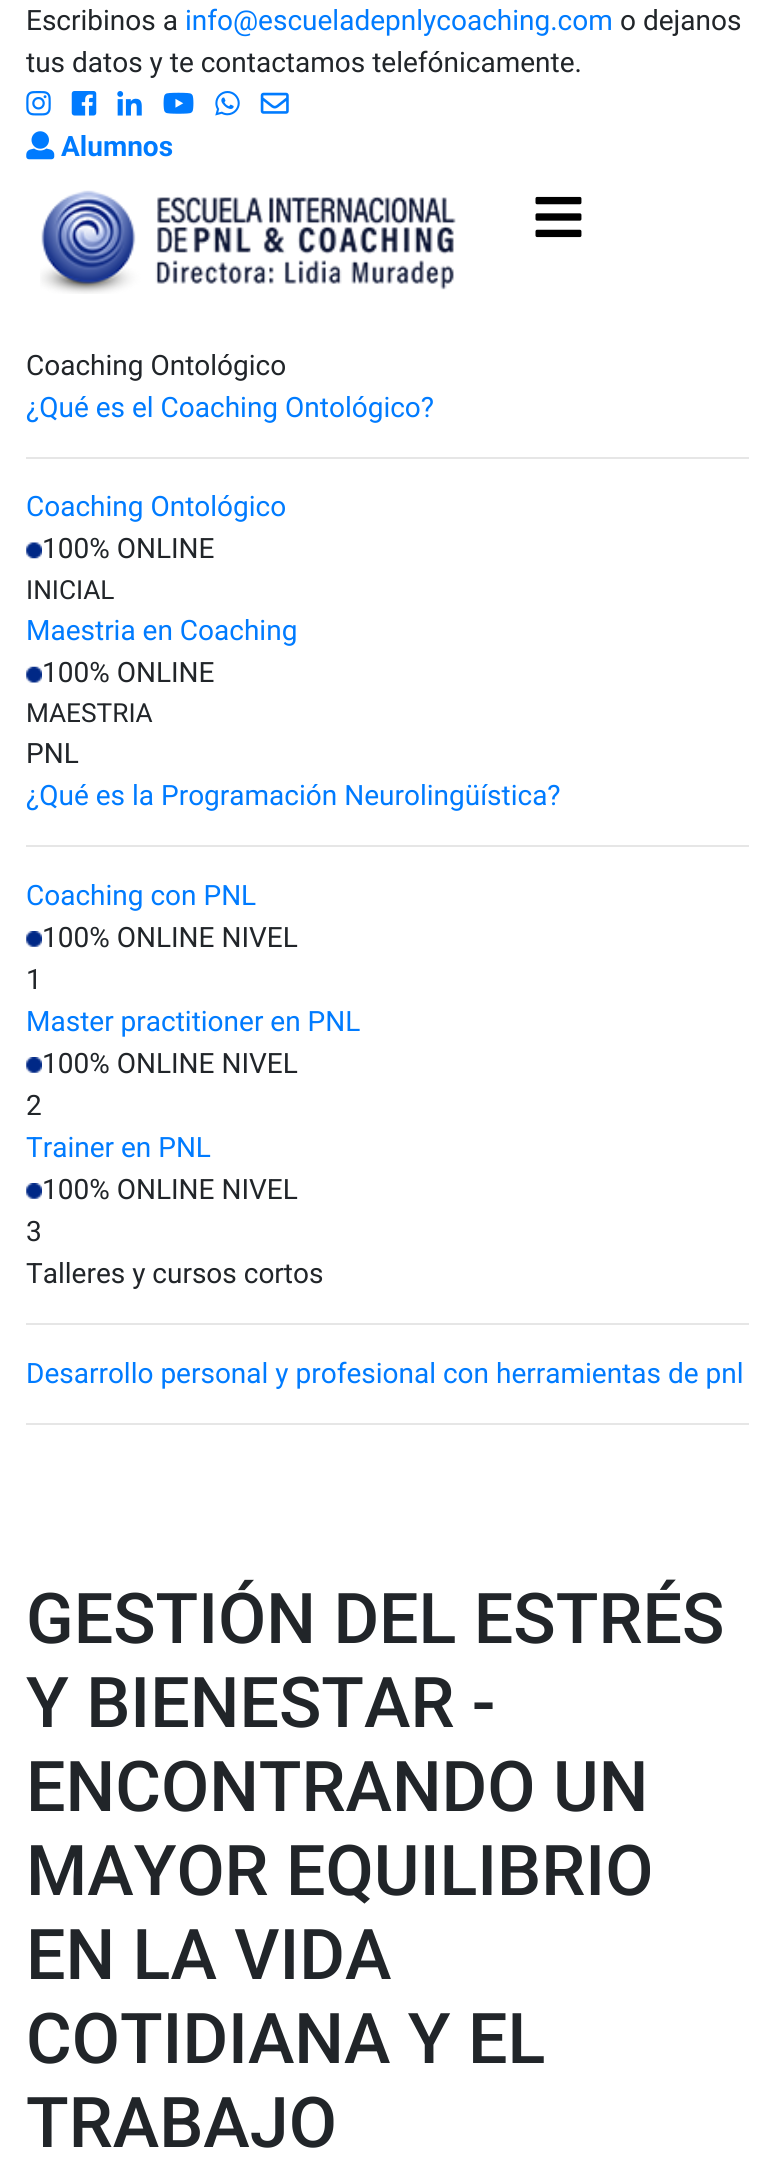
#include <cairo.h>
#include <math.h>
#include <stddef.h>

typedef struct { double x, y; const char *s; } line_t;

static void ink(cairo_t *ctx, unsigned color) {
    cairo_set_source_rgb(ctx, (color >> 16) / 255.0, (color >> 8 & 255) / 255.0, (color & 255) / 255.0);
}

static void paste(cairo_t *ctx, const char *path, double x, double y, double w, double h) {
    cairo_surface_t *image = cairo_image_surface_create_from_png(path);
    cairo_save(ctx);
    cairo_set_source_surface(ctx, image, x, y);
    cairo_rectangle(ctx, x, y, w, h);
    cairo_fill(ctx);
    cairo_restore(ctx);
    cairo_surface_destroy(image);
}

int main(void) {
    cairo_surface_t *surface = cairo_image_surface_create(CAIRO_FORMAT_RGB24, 774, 2176);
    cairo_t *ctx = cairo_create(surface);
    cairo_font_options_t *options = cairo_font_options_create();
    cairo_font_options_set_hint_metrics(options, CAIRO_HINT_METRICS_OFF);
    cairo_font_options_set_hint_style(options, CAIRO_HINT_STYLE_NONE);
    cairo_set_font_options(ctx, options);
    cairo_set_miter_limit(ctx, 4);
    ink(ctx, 0xFFFFFF);
    cairo_paint(ctx);
    cairo_select_font_face(ctx, "Roboto", CAIRO_FONT_SLANT_NORMAL, CAIRO_FONT_WEIGHT_NORMAL);
    cairo_set_font_size(ctx, 28);
    ink(ctx, 0x212529);
    cairo_move_to(ctx, 26, 30);
    cairo_show_text(ctx, "Escribinos a");
    ink(ctx, 0x007BFF);
    cairo_move_to(ctx, 185, 30);
    cairo_show_text(ctx, "info@escueladepnlycoaching.com");
    ink(ctx, 0x212529);
    cairo_move_to(ctx, 620, 30);
    cairo_show_text(ctx, "o dejanos");
    cairo_move_to(ctx, 26, 72);
    cairo_show_text(ctx, "tus datos y te contactamos telefónicamente.");
    paste(ctx, "media/1.png", 26, 91, 25, 25);
    paste(ctx, "media/2.png", 71, 91, 26, 25);
    paste(ctx, "media/3.png", 117, 91, 25, 25);
    paste(ctx, "media/4.png", 163, 92, 31, 22);
    paste(ctx, "media/5.png", 215, 91, 25, 25);
    paste(ctx, "media/6.png", 260, 92, 29, 22);
    paste(ctx, "media/7.png", 26, 131, 29, 29);
    cairo_select_font_face(ctx, "Roboto", CAIRO_FONT_SLANT_NORMAL, CAIRO_FONT_WEIGHT_BOLD);
    ink(ctx, 0x007BFF);
    cairo_move_to(ctx, 61, 156);
    cairo_show_text(ctx, "Alumnos");
    paste(ctx, "media/8.png", 40, 190, 416, 104);
    paste(ctx, "media/9.png", 535, 196, 47, 42);
    cairo_select_font_face(ctx, "Roboto", CAIRO_FONT_SLANT_NORMAL, CAIRO_FONT_WEIGHT_NORMAL);
    ink(ctx, 0x212529);
    cairo_move_to(ctx, 26, 375);
    cairo_show_text(ctx, "Coaching Ontológico");
    ink(ctx, 0x007BFF);
    cairo_move_to(ctx, 26, 417);
    cairo_show_text(ctx, "¿Qué es el Coaching Ontológico?");
    ink(ctx, 0xE6E6E6);
    cairo_rectangle(ctx, 26, 457, 723, 2);
    cairo_fill(ctx);
    ink(ctx, 0x007BFF);
    cairo_move_to(ctx, 26, 516);
    cairo_show_text(ctx, "Coaching Ontológico");
    paste(ctx, "media/10.png", 26, 542, 16, 17);
    ink(ctx, 0x212529);
    cairo_move_to(ctx, 42, 558);
    cairo_show_text(ctx, "100% ONLINE");
    cairo_set_font_size(ctx, 26.25);
    cairo_move_to(ctx, 26, 599);
    cairo_show_text(ctx, "INICIAL");
    cairo_set_font_size(ctx, 28);
    ink(ctx, 0x007BFF);
    cairo_move_to(ctx, 26, 640);
    cairo_show_text(ctx, "Maestria en Coaching");
    paste(ctx, "media/11.png", 26, 666, 16, 17);
    ink(ctx, 0x212529);
    cairo_move_to(ctx, 42, 682);
    cairo_show_text(ctx, "100% ONLINE");
    cairo_set_font_size(ctx, 26.25);
    cairo_move_to(ctx, 26, 722);
    cairo_show_text(ctx, "MAESTRIA");
    cairo_set_font_size(ctx, 28);
    cairo_move_to(ctx, 26, 763);
    cairo_show_text(ctx, "PNL");
    ink(ctx, 0x007BFF);
    cairo_move_to(ctx, 26, 805);
    cairo_show_text(ctx, "¿Qué es la Programación Neurolingüística?");
    ink(ctx, 0xE6E6E6);
    cairo_rectangle(ctx, 26, 845, 723, 2);
    cairo_fill(ctx);
    ink(ctx, 0x007BFF);
    cairo_move_to(ctx, 26, 905);
    cairo_show_text(ctx, "Coaching con PNL");
    paste(ctx, "media/12.png", 26, 931, 16, 16);
    ink(ctx, 0x212529);
    cairo_move_to(ctx, 42, 947);
    cairo_show_text(ctx, "100% ONLINE NIVEL");
    cairo_move_to(ctx, 26, 989);
    cairo_show_text(ctx, "1");
    ink(ctx, 0x007BFF);
    cairo_move_to(ctx, 26, 1031);
    cairo_show_text(ctx, "Master practitioner en PNL");
    paste(ctx, "media/12.png", 26, 1057, 16, 16);
    ink(ctx, 0x212529);
    cairo_move_to(ctx, 42, 1073);
    cairo_show_text(ctx, "100% ONLINE NIVEL");
    cairo_move_to(ctx, 26, 1115);
    cairo_show_text(ctx, "2");
    ink(ctx, 0x007BFF);
    cairo_move_to(ctx, 26, 1157);
    cairo_show_text(ctx, "Trainer en PNL");
    paste(ctx, "media/12.png", 26, 1183, 16, 16);
    ink(ctx, 0x212529);
    {
        static const line_t items[] = {
            {42, 1199, "100% ONLINE NIVEL"},
            {26, 1241, "3"},
            {26, 1283, "Talleres y cursos cortos"},
        };
        for (size_t i = 0; i < sizeof items / sizeof *items; i++) {
            cairo_move_to(ctx, items[i].x, items[i].y);
            cairo_show_text(ctx, items[i].s);
        }
    }
    ink(ctx, 0xE6E6E6);
    cairo_rectangle(ctx, 26, 1323, 723, 2);
    cairo_fill(ctx);
    ink(ctx, 0x007BFF);
    cairo_move_to(ctx, 26, 1383);
    cairo_show_text(ctx, "Desarrollo personal y profesional con herramientas de pnl");
    ink(ctx, 0xE6E6E6);
    cairo_rectangle(ctx, 26, 1423, 723, 2);
    cairo_fill(ctx);
    cairo_select_font_face(ctx, "Roboto Medium", CAIRO_FONT_SLANT_NORMAL, CAIRO_FONT_WEIGHT_NORMAL);
    cairo_set_font_size(ctx, 70);
    ink(ctx, 0x212529);
    {
        static const line_t items[] = {
            {26, 1643, "GESTIÓN DEL ESTRÉS"},
            {26, 1727, "Y BIENESTAR -"},
            {26, 1811, "ENCONTRANDO UN"},
            {26, 1895, "MAYOR EQUILIBRIO"},
            {26, 1979, "EN LA VIDA"},
            {26, 2063, "COTIDIANA Y EL"},
            {26, 2147, "TRABAJO"},
        };
        for (size_t i = 0; i < sizeof items / sizeof *items; i++) {
            cairo_move_to(ctx, items[i].x, items[i].y);
            cairo_show_text(ctx, items[i].s);
        }
    }
    cairo_surface_write_to_png(surface, "image.png");
    cairo_font_options_destroy(options);
    cairo_destroy(ctx);
    cairo_surface_destroy(surface);
    return 0;
}
